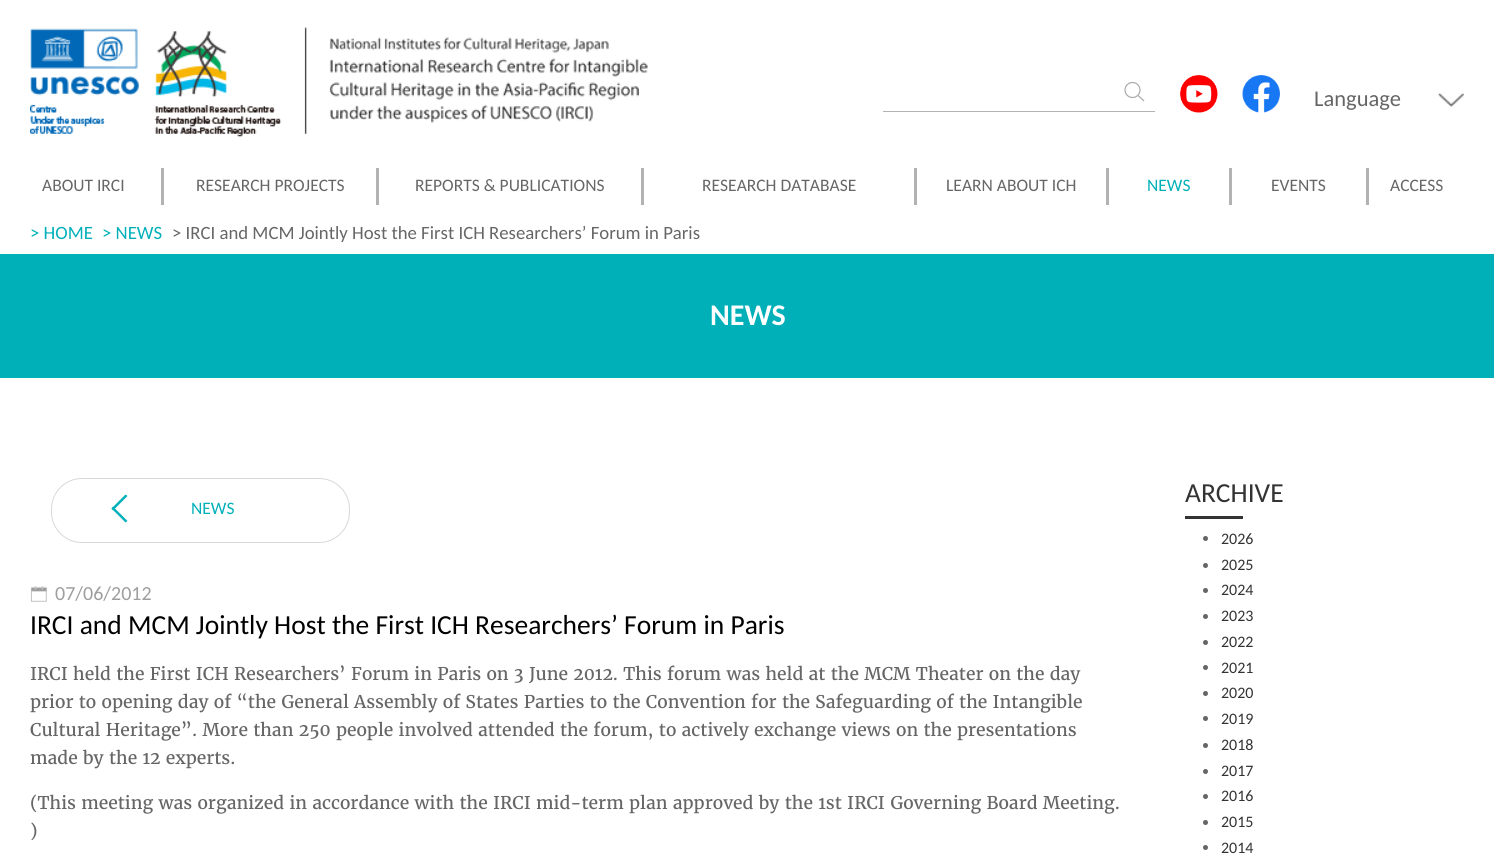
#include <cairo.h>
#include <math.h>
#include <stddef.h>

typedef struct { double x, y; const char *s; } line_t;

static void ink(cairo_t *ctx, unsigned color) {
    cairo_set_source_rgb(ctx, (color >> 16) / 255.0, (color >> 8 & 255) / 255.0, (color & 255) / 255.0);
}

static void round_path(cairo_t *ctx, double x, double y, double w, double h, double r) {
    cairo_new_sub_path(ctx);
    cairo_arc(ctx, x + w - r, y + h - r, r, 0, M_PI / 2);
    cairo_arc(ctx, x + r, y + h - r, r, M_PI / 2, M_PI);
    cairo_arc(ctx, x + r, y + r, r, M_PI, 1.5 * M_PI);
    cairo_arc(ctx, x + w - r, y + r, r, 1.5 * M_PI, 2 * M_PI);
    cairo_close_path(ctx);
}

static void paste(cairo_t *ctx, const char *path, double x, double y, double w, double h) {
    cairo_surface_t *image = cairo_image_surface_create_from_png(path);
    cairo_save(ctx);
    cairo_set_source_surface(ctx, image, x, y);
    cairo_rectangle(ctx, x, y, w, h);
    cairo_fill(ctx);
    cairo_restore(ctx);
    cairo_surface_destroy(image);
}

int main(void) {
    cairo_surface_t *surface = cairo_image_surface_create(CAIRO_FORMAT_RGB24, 1494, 862);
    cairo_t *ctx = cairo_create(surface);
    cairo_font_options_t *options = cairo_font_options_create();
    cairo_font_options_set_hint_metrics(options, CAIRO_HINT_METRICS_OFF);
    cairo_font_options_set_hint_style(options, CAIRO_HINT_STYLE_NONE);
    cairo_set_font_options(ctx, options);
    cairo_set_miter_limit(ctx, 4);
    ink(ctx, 0xFFFFFF);
    cairo_paint(ctx);
    paste(ctx, "media/1.png", 30, 27, 618, 110);
    ink(ctx, 0xB2B2B2);
    cairo_rectangle(ctx, 883, 111, 272, 1);
    cairo_fill(ctx);
    cairo_arc(ctx, 1132.5, 90, 7.5, 0, 2 * M_PI);
    ink(ctx, 0xAAAAAA);
    cairo_set_line_width(ctx, 1.2);
    cairo_stroke(ctx);
    cairo_new_path(ctx);
    cairo_move_to(ctx, 1138, 95.5);
    cairo_line_to(ctx, 1144, 101);
    cairo_stroke(ctx);
    paste(ctx, "media/2.png", 1180, 75, 38, 38);
    paste(ctx, "media/3.png", 1242, 75, 38, 38);
    paste(ctx, "media/4.png", 1438, 93, 26, 14);
    cairo_select_font_face(ctx, "Carlito", CAIRO_FONT_SLANT_NORMAL, CAIRO_FONT_WEIGHT_NORMAL);
    cairo_set_font_size(ctx, 22.5);
    ink(ctx, 0x666666);
    cairo_move_to(ctx, 1314, 106);
    cairo_show_text(ctx, "Language");
    cairo_set_font_size(ctx, 17.5);
    cairo_move_to(ctx, 42, 191);
    cairo_show_text(ctx, "ABOUT IRCI");
    ink(ctx, 0xB2B2B2);
    cairo_rectangle(ctx, 161, 168, 3, 37);
    cairo_fill(ctx);
    ink(ctx, 0x666666);
    cairo_move_to(ctx, 196, 191);
    cairo_show_text(ctx, "RESEARCH PROJECTS");
    ink(ctx, 0xB2B2B2);
    cairo_rectangle(ctx, 376, 168, 3, 37);
    cairo_fill(ctx);
    ink(ctx, 0x666666);
    cairo_move_to(ctx, 415, 191);
    cairo_show_text(ctx, "REPORTS & PUBLICATIONS");
    ink(ctx, 0xB2B2B2);
    cairo_rectangle(ctx, 641, 168, 3, 37);
    cairo_fill(ctx);
    ink(ctx, 0x666666);
    cairo_move_to(ctx, 702, 191);
    cairo_show_text(ctx, "RESEARCH DATABASE");
    ink(ctx, 0xB2B2B2);
    cairo_rectangle(ctx, 914, 168, 3, 37);
    cairo_fill(ctx);
    ink(ctx, 0x666666);
    cairo_move_to(ctx, 946, 191);
    cairo_show_text(ctx, "LEARN ABOUT ICH");
    ink(ctx, 0xB2B2B2);
    cairo_rectangle(ctx, 1106, 168, 3, 37);
    cairo_fill(ctx);
    ink(ctx, 0x00B0B9);
    cairo_move_to(ctx, 1147, 191);
    cairo_show_text(ctx, "NEWS");
    ink(ctx, 0xB2B2B2);
    cairo_rectangle(ctx, 1229, 168, 3, 37);
    cairo_fill(ctx);
    ink(ctx, 0x666666);
    cairo_move_to(ctx, 1271, 191);
    cairo_show_text(ctx, "EVENTS");
    ink(ctx, 0xB2B2B2);
    cairo_rectangle(ctx, 1366, 168, 3, 37);
    cairo_fill(ctx);
    ink(ctx, 0x666666);
    cairo_move_to(ctx, 1390, 191);
    cairo_show_text(ctx, "ACCESS");
    cairo_set_font_size(ctx, 18.75);
    ink(ctx, 0x00B0B9);
    cairo_move_to(ctx, 30, 239);
    cairo_show_text(ctx, "> HOME");
    cairo_move_to(ctx, 102, 239);
    cairo_show_text(ctx, "> NEWS");
    ink(ctx, 0x666666);
    cairo_move_to(ctx, 172, 239);
    cairo_show_text(ctx, "> IRCI and MCM Jointly Host the First ICH Researchers’ Forum in Paris");
    ink(ctx, 0x00B0B9);
    cairo_rectangle(ctx, 0, 254, 1494, 124);
    cairo_fill(ctx);
    cairo_select_font_face(ctx, "Carlito", CAIRO_FONT_SLANT_NORMAL, CAIRO_FONT_WEIGHT_BOLD);
    cairo_set_font_size(ctx, 30);
    ink(ctx, 0xFFFFFF);
    cairo_move_to(ctx, 710, 325);
    cairo_show_text(ctx, "NEWS");
    round_path(ctx, 51.5, 478.5, 298, 64, 30.5);
    ink(ctx, 0xD8D8D8);
    cairo_set_line_width(ctx, 1);
    cairo_stroke(ctx);
    ink(ctx, 0x00B0B9);
    cairo_new_path(ctx);
    cairo_move_to(ctx, 125.5, 522.5);
    cairo_line_to(ctx, 111.5, 508.5);
    cairo_line_to(ctx, 113, 506.5);
    cairo_line_to(ctx, 127.5, 521);
    cairo_close_path(ctx);
    cairo_fill(ctx);
    cairo_new_path(ctx);
    cairo_move_to(ctx, 113, 510.5);
    cairo_line_to(ctx, 111.5, 508.5);
    cairo_line_to(ctx, 125.5, 494.5);
    cairo_line_to(ctx, 127.5, 496);
    cairo_close_path(ctx);
    cairo_fill(ctx);
    cairo_select_font_face(ctx, "Carlito", CAIRO_FONT_SLANT_NORMAL, CAIRO_FONT_WEIGHT_NORMAL);
    cairo_set_font_size(ctx, 17.5);
    cairo_move_to(ctx, 191, 514);
    cairo_show_text(ctx, "NEWS");
    paste(ctx, "media/5.png", 30, 586, 17, 16);
    cairo_set_font_size(ctx, 20);
    ink(ctx, 0x9E9E9E);
    cairo_move_to(ctx, 55, 600);
    cairo_show_text(ctx, "07/06/2012");
    cairo_set_font_size(ctx, 27.5);
    ink(ctx, 0x000000);
    cairo_move_to(ctx, 30, 634);
    cairo_show_text(ctx, "IRCI and MCM Jointly Host the First ICH Researchers’ Forum in Paris");
    cairo_select_font_face(ctx, "Merriweather", CAIRO_FONT_SLANT_NORMAL, CAIRO_FONT_WEIGHT_NORMAL);
    cairo_set_font_size(ctx, 17.5);
    ink(ctx, 0x666666);
    {
        static const line_t items[] = {
            {30, 680, "IRCI held the First ICH Researchers’ Forum in Paris on 3 June 2012. This forum was held at the MCM Theater on the day"},
            {30, 708, "prior to opening day of “the General Assembly of States Parties to the Convention for the Safeguarding of the Intangible"},
            {30, 736, "Cultural Heritage”. More than 250 people involved attended the forum, to actively exchange views on the presentations"},
            {30, 764, "made by the 12 experts."},
            {30, 809, "(This meeting was organized in accordance with the IRCI mid-term plan approved by the 1st IRCI Governing Board Meeting."},
            {30, 837, ")"},
        };
        for (size_t i = 0; i < sizeof items / sizeof *items; i++) {
            cairo_move_to(ctx, items[i].x, items[i].y);
            cairo_show_text(ctx, items[i].s);
        }
    }
    cairo_select_font_face(ctx, "Carlito", CAIRO_FONT_SLANT_NORMAL, CAIRO_FONT_WEIGHT_NORMAL);
    cairo_set_font_size(ctx, 27.5);
    ink(ctx, 0x333333);
    cairo_move_to(ctx, 1185, 502);
    cairo_show_text(ctx, "ARCHIVE");
    cairo_rectangle(ctx, 1185, 516, 58, 3);
    cairo_fill(ctx);
    ink(ctx, 0x666666);
    cairo_arc(ctx, 1205.5, 538.5, 2.5, 0, 2 * M_PI);
    cairo_fill(ctx);
    cairo_set_font_size(ctx, 16);
    ink(ctx, 0x333333);
    cairo_move_to(ctx, 1221, 544);
    cairo_show_text(ctx, "2026");
    ink(ctx, 0x666666);
    cairo_new_path(ctx);
    cairo_arc(ctx, 1205.5, 565.5, 2.5, 0, 2 * M_PI);
    cairo_fill(ctx);
    ink(ctx, 0x333333);
    cairo_move_to(ctx, 1221, 570);
    cairo_show_text(ctx, "2025");
    ink(ctx, 0x666666);
    cairo_new_path(ctx);
    cairo_arc(ctx, 1205.5, 590.5, 2.5, 0, 2 * M_PI);
    cairo_fill(ctx);
    ink(ctx, 0x333333);
    cairo_move_to(ctx, 1221, 595);
    cairo_show_text(ctx, "2024");
    ink(ctx, 0x666666);
    cairo_new_path(ctx);
    cairo_arc(ctx, 1205.5, 616.5, 2.5, 0, 2 * M_PI);
    cairo_fill(ctx);
    ink(ctx, 0x333333);
    cairo_move_to(ctx, 1221, 621);
    cairo_show_text(ctx, "2023");
    ink(ctx, 0x666666);
    cairo_new_path(ctx);
    cairo_arc(ctx, 1205.5, 642.5, 2.5, 0, 2 * M_PI);
    cairo_fill(ctx);
    ink(ctx, 0x333333);
    cairo_move_to(ctx, 1221, 647);
    cairo_show_text(ctx, "2022");
    ink(ctx, 0x666666);
    cairo_new_path(ctx);
    cairo_arc(ctx, 1205.5, 667.5, 2.5, 0, 2 * M_PI);
    cairo_fill(ctx);
    ink(ctx, 0x333333);
    cairo_move_to(ctx, 1221, 673);
    cairo_show_text(ctx, "2021");
    ink(ctx, 0x666666);
    cairo_new_path(ctx);
    cairo_arc(ctx, 1205.5, 693.5, 2.5, 0, 2 * M_PI);
    cairo_fill(ctx);
    ink(ctx, 0x333333);
    cairo_move_to(ctx, 1221, 698);
    cairo_show_text(ctx, "2020");
    ink(ctx, 0x666666);
    cairo_new_path(ctx);
    cairo_arc(ctx, 1205.5, 718.5, 2.5, 0, 2 * M_PI);
    cairo_fill(ctx);
    ink(ctx, 0x333333);
    cairo_move_to(ctx, 1221, 724);
    cairo_show_text(ctx, "2019");
    ink(ctx, 0x666666);
    cairo_new_path(ctx);
    cairo_arc(ctx, 1205.5, 745.5, 2.5, 0, 2 * M_PI);
    cairo_fill(ctx);
    ink(ctx, 0x333333);
    cairo_move_to(ctx, 1221, 750);
    cairo_show_text(ctx, "2018");
    ink(ctx, 0x666666);
    cairo_new_path(ctx);
    cairo_arc(ctx, 1205.5, 771.5, 2.5, 0, 2 * M_PI);
    cairo_fill(ctx);
    ink(ctx, 0x333333);
    cairo_move_to(ctx, 1221, 776);
    cairo_show_text(ctx, "2017");
    ink(ctx, 0x666666);
    cairo_new_path(ctx);
    cairo_arc(ctx, 1205.5, 796.5, 2.5, 0, 2 * M_PI);
    cairo_fill(ctx);
    ink(ctx, 0x333333);
    cairo_move_to(ctx, 1221, 801);
    cairo_show_text(ctx, "2016");
    ink(ctx, 0x666666);
    cairo_new_path(ctx);
    cairo_arc(ctx, 1205.5, 822.5, 2.5, 0, 2 * M_PI);
    cairo_fill(ctx);
    ink(ctx, 0x333333);
    cairo_move_to(ctx, 1221, 827);
    cairo_show_text(ctx, "2015");
    ink(ctx, 0x666666);
    cairo_new_path(ctx);
    cairo_arc(ctx, 1205.5, 847.5, 2.5, 0, 2 * M_PI);
    cairo_fill(ctx);
    ink(ctx, 0x333333);
    cairo_move_to(ctx, 1221, 853);
    cairo_show_text(ctx, "2014");
    cairo_surface_write_to_png(surface, "image.png");
    cairo_font_options_destroy(options);
    cairo_destroy(ctx);
    cairo_surface_destroy(surface);
    return 0;
}
